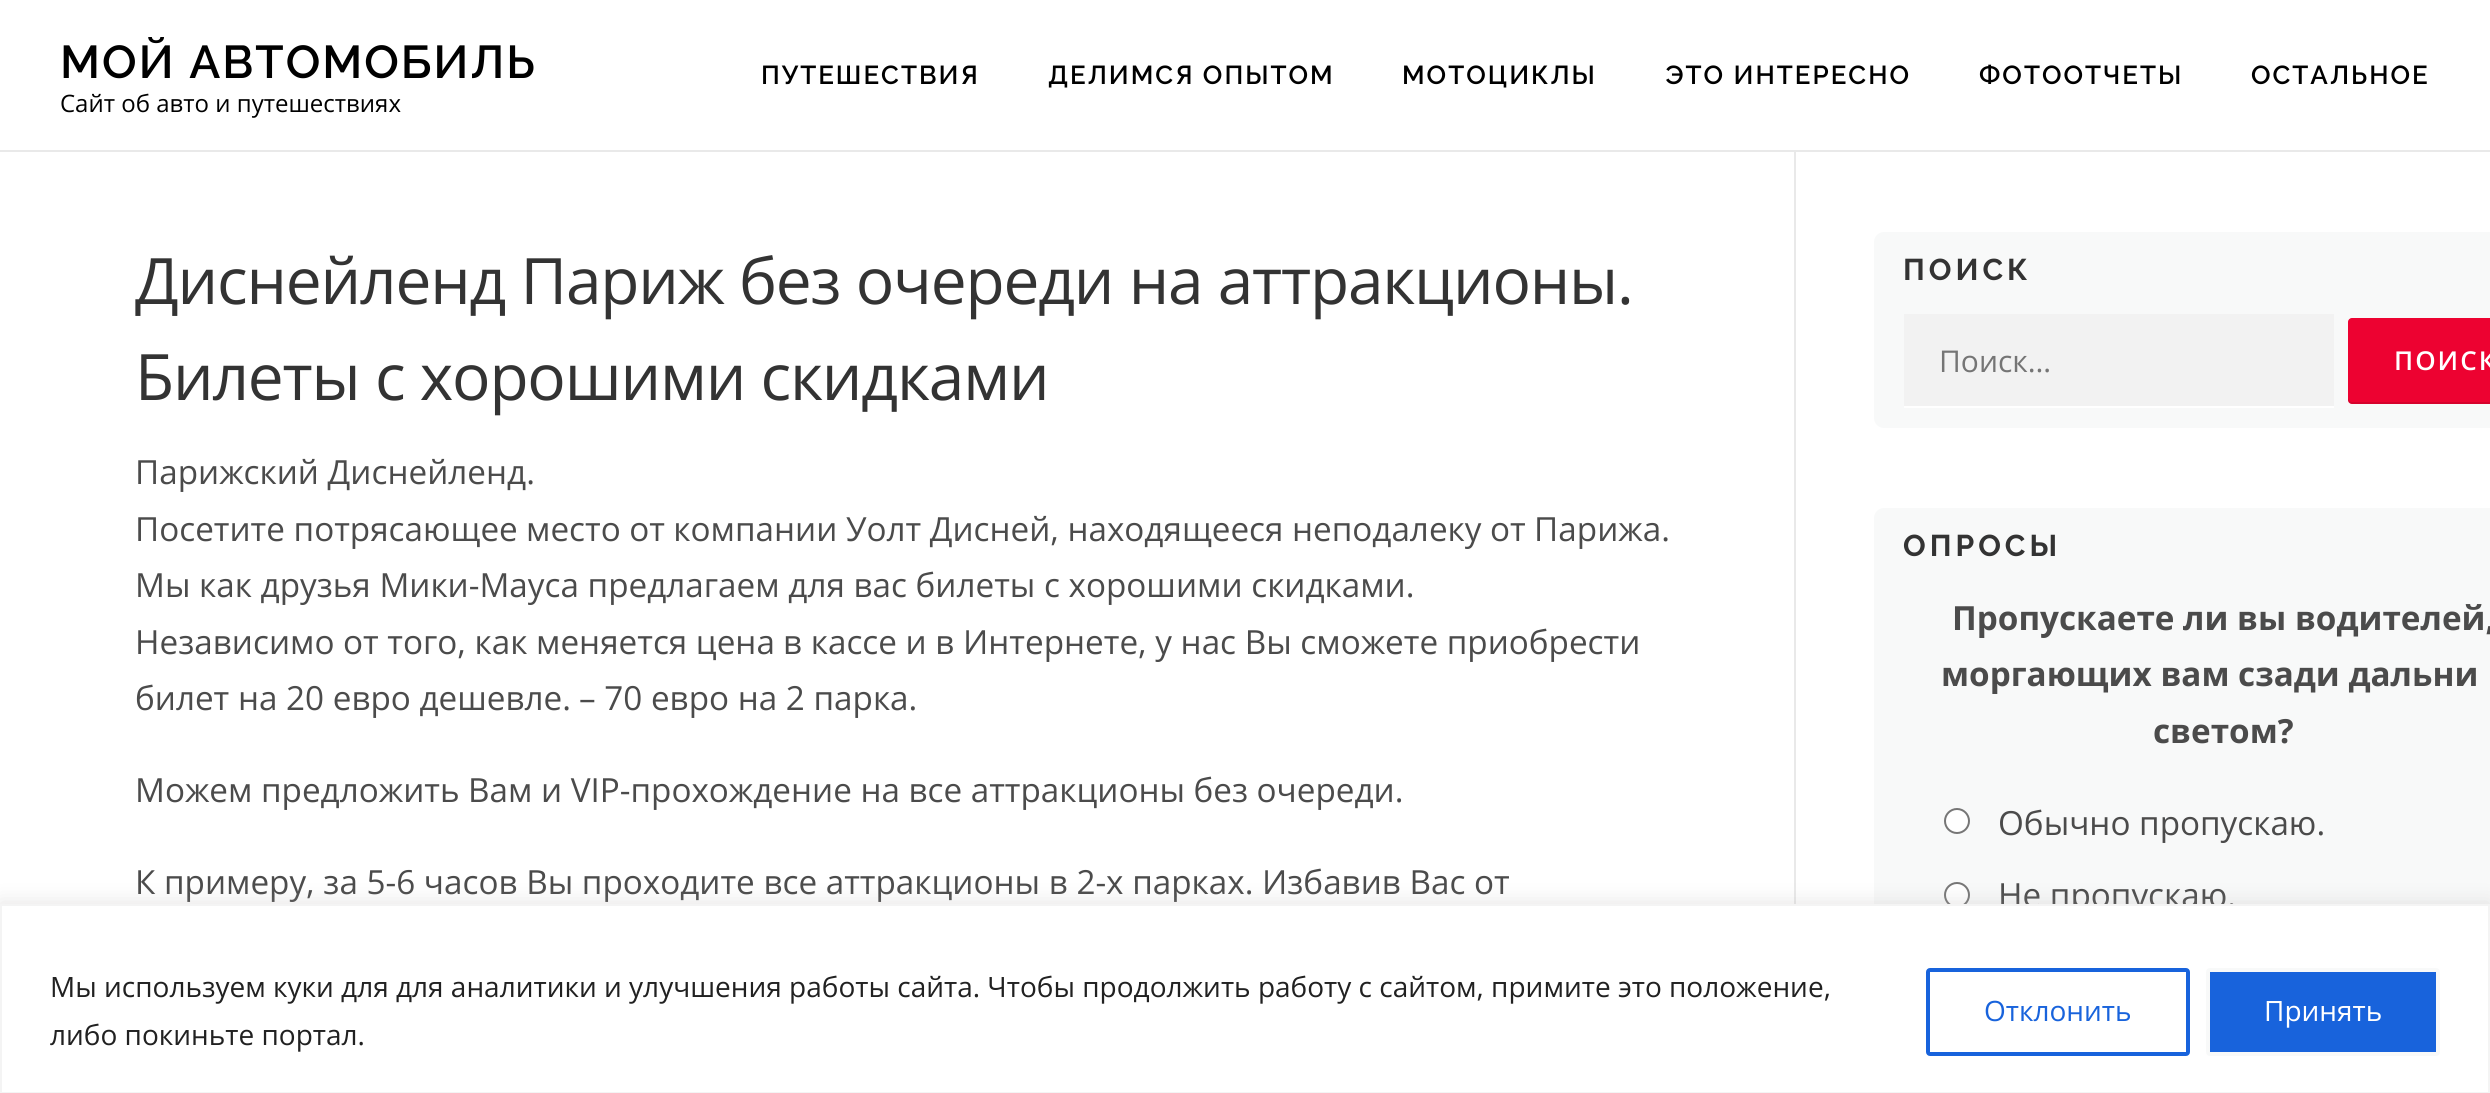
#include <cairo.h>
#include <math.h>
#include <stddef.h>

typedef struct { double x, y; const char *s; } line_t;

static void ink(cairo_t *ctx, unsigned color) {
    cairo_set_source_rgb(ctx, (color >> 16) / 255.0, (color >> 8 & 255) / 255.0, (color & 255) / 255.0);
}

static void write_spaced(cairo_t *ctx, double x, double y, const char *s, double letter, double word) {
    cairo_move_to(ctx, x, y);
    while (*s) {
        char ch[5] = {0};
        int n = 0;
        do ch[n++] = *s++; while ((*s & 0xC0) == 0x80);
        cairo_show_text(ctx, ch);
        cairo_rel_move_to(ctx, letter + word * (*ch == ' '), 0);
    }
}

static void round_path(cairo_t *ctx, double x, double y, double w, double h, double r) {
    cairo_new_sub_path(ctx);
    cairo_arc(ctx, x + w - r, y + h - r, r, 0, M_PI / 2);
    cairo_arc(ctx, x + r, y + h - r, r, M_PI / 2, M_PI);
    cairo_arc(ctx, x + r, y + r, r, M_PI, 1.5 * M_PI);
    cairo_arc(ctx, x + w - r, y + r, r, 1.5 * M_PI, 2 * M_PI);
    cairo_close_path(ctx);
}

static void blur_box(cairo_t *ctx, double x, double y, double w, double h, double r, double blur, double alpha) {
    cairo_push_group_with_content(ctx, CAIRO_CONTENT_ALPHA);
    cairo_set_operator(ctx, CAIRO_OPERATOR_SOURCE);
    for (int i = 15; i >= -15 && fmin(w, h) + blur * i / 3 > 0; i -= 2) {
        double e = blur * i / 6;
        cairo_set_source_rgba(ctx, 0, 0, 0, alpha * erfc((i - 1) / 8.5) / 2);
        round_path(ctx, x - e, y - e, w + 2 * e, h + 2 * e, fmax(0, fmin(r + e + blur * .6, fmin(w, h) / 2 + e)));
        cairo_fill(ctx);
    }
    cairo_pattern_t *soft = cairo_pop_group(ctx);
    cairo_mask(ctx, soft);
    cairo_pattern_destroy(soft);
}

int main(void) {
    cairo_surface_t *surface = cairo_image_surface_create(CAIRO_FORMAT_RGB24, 2490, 1093);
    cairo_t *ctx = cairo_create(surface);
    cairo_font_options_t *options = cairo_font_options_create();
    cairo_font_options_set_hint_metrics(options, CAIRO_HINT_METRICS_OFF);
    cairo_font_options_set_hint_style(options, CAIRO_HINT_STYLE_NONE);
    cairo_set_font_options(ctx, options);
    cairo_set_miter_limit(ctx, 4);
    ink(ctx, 0xFFFFFF);
    cairo_paint(ctx);
    cairo_select_font_face(ctx, "Raleway SemiBold", CAIRO_FONT_SLANT_NORMAL, CAIRO_FONT_WEIGHT_NORMAL);
    cairo_set_font_size(ctx, 46);
    ink(ctx, 0x000000);
    write_spaced(ctx, 60, 78, "МОЙ АВТОМОБИЛЬ", 2, 0);
    cairo_select_font_face(ctx, "Open Sans", CAIRO_FONT_SLANT_NORMAL, CAIRO_FONT_WEIGHT_NORMAL);
    cairo_set_font_size(ctx, 24);
    cairo_move_to(ctx, 60, 112);
    cairo_show_text(ctx, "Сайт об авто и путешествиях");
    cairo_select_font_face(ctx, "Raleway SemiBold", CAIRO_FONT_SLANT_NORMAL, CAIRO_FONT_WEIGHT_NORMAL);
    cairo_set_font_size(ctx, 26);
    {
        static const line_t items[] = {
            {761, 84, "ПУТЕШЕСТВИЯ"},
            {1048, 84, "ДЕЛИМСЯ ОПЫТОМ"},
            {1402, 84, "МОТОЦИКЛЫ"},
            {1665, 84, "ЭТО ИНТЕРЕСНО"},
            {1979, 84, "ФОТООТЧЕТЫ"},
            {2251, 84, "ОСТАЛЬНОЕ"},
        };
        for (size_t i = 0; i < sizeof items / sizeof *items; i++) {
            write_spaced(ctx, items[i].x, items[i].y, items[i].s, 2, 0);
        }
    }
    ink(ctx, 0xE9E9E9);
    cairo_rectangle(ctx, 0, 150, 2490, 2);
    cairo_fill(ctx);
    cairo_rectangle(ctx, 1794, 152, 2, 752);
    cairo_fill(ctx);
    cairo_select_font_face(ctx, "Open Sans", CAIRO_FONT_SLANT_NORMAL, CAIRO_FONT_WEIGHT_NORMAL);
    cairo_set_font_size(ctx, 64);
    ink(ctx, 0x333333);
    write_spaced(ctx, 135, 304, "Диснейленд Париж без очереди на аттракционы.", -1.2, 0);
    write_spaced(ctx, 135, 400, "Билеты с хорошими скидками", -1.2, 0);
    cairo_set_font_size(ctx, 33.25);
    ink(ctx, 0x4B4B4B);
    cairo_move_to(ctx, 135, 484);
    cairo_show_text(ctx, "Парижский Диснейленд.");
    cairo_move_to(ctx, 135, 541);
    cairo_show_text(ctx, "Посетите потрясающее");
    write_spaced(ctx, 526, 541, "место от компании Уолт Дисней, находящееся неподалеку от Парижа.", 0, -0.1);
    {
        static const line_t items[] = {
            {135, 597, "Мы как друзья Мики-Мауса предлагаем для вас билеты с хорошими скидками."},
            {135, 654, "Независимо от того, как меняется цена"},
            {783, 654, "в кассе и в Интернете, у нас Вы сможете приобрести"},
            {135, 710, "билет на 20 евро дешевле."},
            {579, 710, "– 70 евро на 2 парка."},
        };
        for (size_t i = 0; i < sizeof items / sizeof *items; i++) {
            cairo_move_to(ctx, items[i].x, items[i].y);
            cairo_show_text(ctx, items[i].s);
        }
    }
    write_spaced(ctx, 135, 802, "Можем предложить Вам и VIP-прохождение на все аттракционы без очереди.", 0, -0.1);
    cairo_move_to(ctx, 135, 894);
    cairo_show_text(ctx, "К примеру, за 5-6 часов Вы проходите все аттракционы в 2-х парках. Избавив Вас от");
    ink(ctx, 0xF8F9F9);
    round_path(ctx, 1874, 232, 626, 196, 10);
    cairo_fill(ctx);
    cairo_select_font_face(ctx, "Raleway", CAIRO_FONT_SLANT_NORMAL, CAIRO_FONT_WEIGHT_BOLD);
    cairo_set_font_size(ctx, 30);
    ink(ctx, 0x333333);
    write_spaced(ctx, 1903, 280, "ПОИСК", 4, 0);
    ink(ctx, 0xF2F2F2);
    cairo_rectangle(ctx, 1904, 314, 430, 92);
    cairo_fill(ctx);
    ink(ctx, 0xFFFFFF);
    cairo_rectangle(ctx, 1904, 406, 430, 2);
    cairo_fill(ctx);
    cairo_select_font_face(ctx, "Open Sans", CAIRO_FONT_SLANT_NORMAL, CAIRO_FONT_WEIGHT_NORMAL);
    ink(ctx, 0x757575);
    cairo_move_to(ctx, 1939, 372);
    cairo_show_text(ctx, "Поиск…");
    ink(ctx, 0xED0231);
    round_path(ctx, 2348, 318, 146, 86, 4);
    cairo_fill(ctx);
    cairo_set_source_rgba(ctx, 0, 0, 0, 0.1);
    cairo_new_path(ctx);
    cairo_move_to(ctx, 2348, 398);
    cairo_line_to(ctx, 2348, 400);
    cairo_curve_to(ctx, 2348, 402, 2350, 404, 2352, 404);
    cairo_line_to(ctx, 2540, 404);
    cairo_curve_to(ctx, 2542, 404, 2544, 402, 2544, 400);
    cairo_line_to(ctx, 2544, 398);
    cairo_curve_to(ctx, 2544, 400, 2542, 402, 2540, 402);
    cairo_line_to(ctx, 2352, 402);
    cairo_curve_to(ctx, 2350, 402, 2348, 400, 2348, 398);
    cairo_close_path(ctx);
    cairo_fill(ctx);
    cairo_select_font_face(ctx, "Open Sans SemiBold", CAIRO_FONT_SLANT_NORMAL, CAIRO_FONT_WEIGHT_NORMAL);
    cairo_set_font_size(ctx, 26);
    ink(ctx, 0xFFFFFF);
    write_spaced(ctx, 2394, 370, "ПОИСК", 2, 0);
    ink(ctx, 0xF8F9F9);
    round_path(ctx, 1874, 508, 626, 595, 10);
    cairo_fill(ctx);
    cairo_select_font_face(ctx, "Raleway", CAIRO_FONT_SLANT_NORMAL, CAIRO_FONT_WEIGHT_BOLD);
    cairo_set_font_size(ctx, 30);
    ink(ctx, 0x333333);
    write_spaced(ctx, 1903, 556, "ОПРОСЫ", 4, 0);
    cairo_select_font_face(ctx, "Open Sans", CAIRO_FONT_SLANT_NORMAL, CAIRO_FONT_WEIGHT_BOLD);
    cairo_set_font_size(ctx, 33.25);
    ink(ctx, 0x4B4B4B);
    {
        static const line_t items[] = {
            {1952, 630, "Пропускаете ли вы водителей,"},
            {1941, 686, "моргающих вам сзади дальни"},
            {2153, 743, "светом?"},
        };
        for (size_t i = 0; i < sizeof items / sizeof *items; i++) {
            cairo_move_to(ctx, items[i].x, items[i].y);
            cairo_show_text(ctx, items[i].s);
        }
    }
    ink(ctx, 0xFFFFFF);
    cairo_new_path(ctx);
    cairo_arc(ctx, 1957, 821, 12, 0, 2 * M_PI);
    cairo_fill_preserve(ctx);
    ink(ctx, 0x767676);
    cairo_stroke(ctx);
    cairo_select_font_face(ctx, "Open Sans", CAIRO_FONT_SLANT_NORMAL, CAIRO_FONT_WEIGHT_NORMAL);
    ink(ctx, 0x4B4B4B);
    cairo_move_to(ctx, 1998, 835);
    cairo_show_text(ctx, "Обычно пропускаю.");
    ink(ctx, 0xFFFFFF);
    cairo_new_path(ctx);
    cairo_arc(ctx, 1957, 895, 12, 0, 2 * M_PI);
    cairo_fill_preserve(ctx);
    ink(ctx, 0x767676);
    cairo_stroke(ctx);
    ink(ctx, 0x4B4B4B);
    cairo_move_to(ctx, 1998, 907);
    cairo_show_text(ctx, "Не пропускаю.");
    ink(ctx, 0xACABAB);
    blur_box(ctx, 0, 902, 2490, 190, 0, 10, 0.3);
    ink(ctx, 0xFFFFFF);
    cairo_rectangle(ctx, 1, 905, 2488, 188);
    cairo_fill_preserve(ctx);
    ink(ctx, 0xF4F4F4);
    cairo_stroke(ctx);
    cairo_set_font_size(ctx, 28);
    ink(ctx, 0x212121);
    cairo_move_to(ctx, 50, 997);
    cairo_show_text(ctx, "Мы используем куки для для аналитики и улучшения работы сайта. Чтобы продолжить работу с сайтом, примите это положение,");
    cairo_move_to(ctx, 50, 1045);
    cairo_show_text(ctx, "либо покиньте портал.");
    round_path(ctx, 1928, 970, 260, 84, 2);
    ink(ctx, 0x1863DC);
    cairo_set_line_width(ctx, 4);
    cairo_stroke(ctx);
    cairo_move_to(ctx, 1984, 1021);
    cairo_show_text(ctx, "Отклонить");
    round_path(ctx, 2208, 970, 230, 84, 2);
    cairo_fill_preserve(ctx);
    ink(ctx, 0xF8F9F9);
    cairo_stroke(ctx);
    ink(ctx, 0xFFFFFF);
    cairo_move_to(ctx, 2264, 1021);
    cairo_show_text(ctx, "Принять");
    cairo_surface_write_to_png(surface, "image.png");
    cairo_font_options_destroy(options);
    cairo_destroy(ctx);
    cairo_surface_destroy(surface);
    return 0;
}
